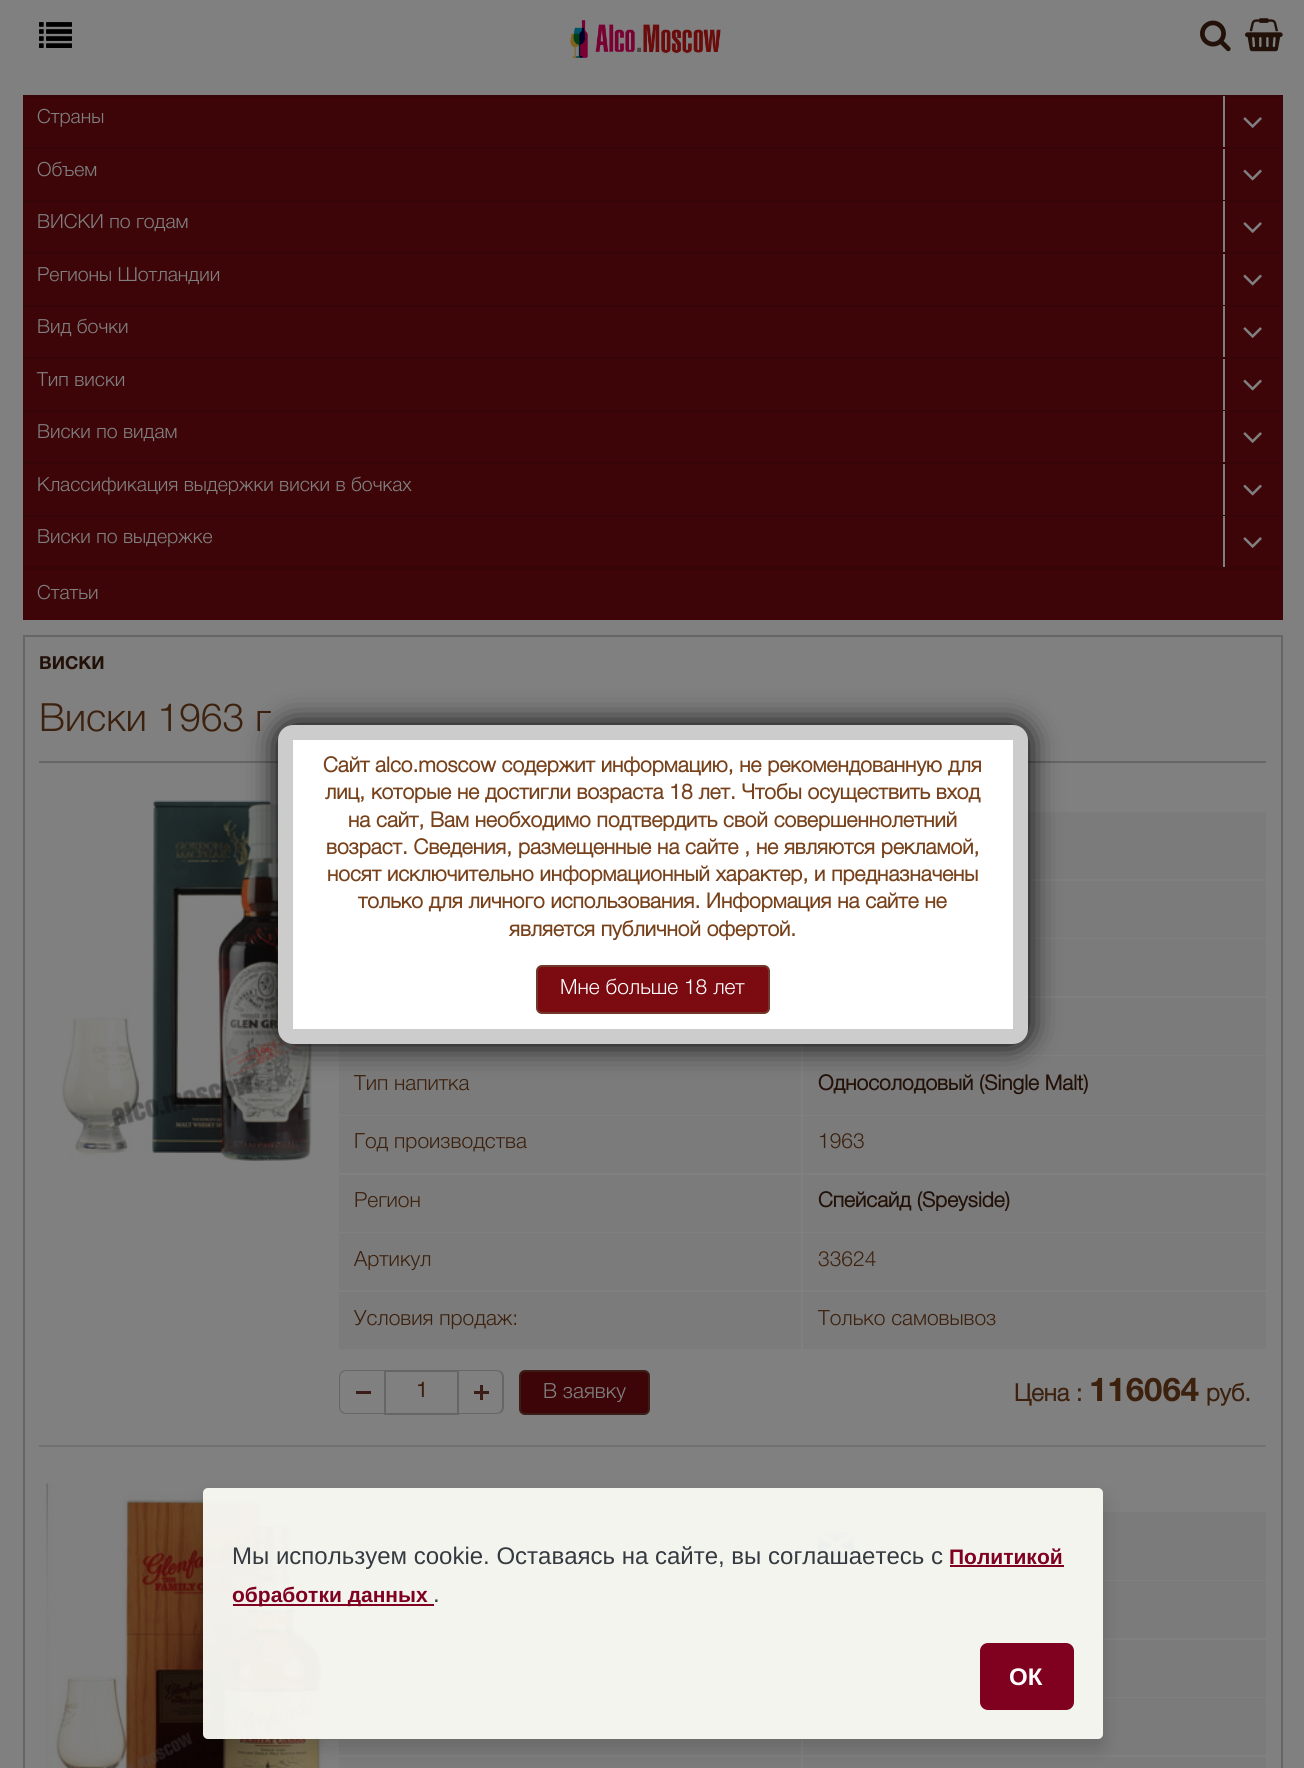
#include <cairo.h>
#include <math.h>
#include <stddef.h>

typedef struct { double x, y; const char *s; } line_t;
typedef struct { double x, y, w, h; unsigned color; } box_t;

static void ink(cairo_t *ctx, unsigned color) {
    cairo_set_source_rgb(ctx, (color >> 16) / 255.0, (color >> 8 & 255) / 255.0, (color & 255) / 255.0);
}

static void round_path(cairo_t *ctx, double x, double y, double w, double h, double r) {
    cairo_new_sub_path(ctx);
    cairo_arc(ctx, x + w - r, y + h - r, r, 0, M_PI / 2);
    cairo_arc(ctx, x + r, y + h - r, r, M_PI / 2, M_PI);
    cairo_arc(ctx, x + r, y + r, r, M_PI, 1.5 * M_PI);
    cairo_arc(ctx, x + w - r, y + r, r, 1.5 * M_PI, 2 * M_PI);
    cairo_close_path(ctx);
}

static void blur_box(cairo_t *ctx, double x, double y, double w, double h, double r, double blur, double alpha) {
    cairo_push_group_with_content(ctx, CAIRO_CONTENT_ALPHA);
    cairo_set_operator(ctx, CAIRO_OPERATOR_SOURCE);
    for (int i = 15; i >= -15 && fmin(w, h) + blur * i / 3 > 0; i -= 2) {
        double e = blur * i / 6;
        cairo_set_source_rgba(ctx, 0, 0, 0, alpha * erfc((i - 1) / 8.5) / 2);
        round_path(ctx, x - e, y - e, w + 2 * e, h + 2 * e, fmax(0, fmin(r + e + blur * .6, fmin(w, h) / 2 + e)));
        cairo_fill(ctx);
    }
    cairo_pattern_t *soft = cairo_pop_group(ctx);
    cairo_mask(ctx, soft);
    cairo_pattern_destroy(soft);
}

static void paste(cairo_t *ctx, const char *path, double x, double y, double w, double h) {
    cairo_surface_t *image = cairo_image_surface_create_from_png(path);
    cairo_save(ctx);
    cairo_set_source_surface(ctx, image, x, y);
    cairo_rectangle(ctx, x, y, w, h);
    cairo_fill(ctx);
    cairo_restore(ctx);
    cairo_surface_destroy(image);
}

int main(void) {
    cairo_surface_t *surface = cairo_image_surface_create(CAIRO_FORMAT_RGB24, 1304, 1768);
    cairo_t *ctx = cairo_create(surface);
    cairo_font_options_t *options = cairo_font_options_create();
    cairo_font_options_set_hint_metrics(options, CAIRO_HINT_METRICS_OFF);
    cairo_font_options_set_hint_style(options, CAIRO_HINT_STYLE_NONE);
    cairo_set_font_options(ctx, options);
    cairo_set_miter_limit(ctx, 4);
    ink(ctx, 0x808080);
    cairo_paint(ctx);
    paste(ctx, "media/1.png", 39, 22, 33, 26);
    paste(ctx, "media/2.png", 570, 20, 151, 38);
    paste(ctx, "media/3.png", 1200, 20, 31, 32);
    paste(ctx, "media/4.png", 1245, 18, 38, 34);
    {
        static const box_t items[] = {
            {23, 97, 1260, 50, 0x3E0509},
            {1225, 96, 1, 51, 0x350507},
            {23, 95, 1260, 2, 0x360508},
            {1224, 96, 2, 1, 0x2E0407},
        };
        for (size_t i = 0; i < sizeof items / sizeof *items; i++) {
            ink(ctx, items[i].color);
            cairo_rectangle(ctx, items[i].x, items[i].y, items[i].w, items[i].h);
            cairo_fill(ctx);
        }
    }
    cairo_select_font_face(ctx, "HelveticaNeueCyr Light", CAIRO_FONT_SLANT_NORMAL, CAIRO_FONT_WEIGHT_NORMAL);
    cairo_set_font_size(ctx, 19.5);
    ink(ctx, 0x808080);
    cairo_move_to(ctx, 37, 123);
    cairo_show_text(ctx, "Страны");
    cairo_rectangle(ctx, 1223, 96, 2, 51);
    cairo_fill(ctx);
    paste(ctx, "media/5.png", 1243, 117, 19, 11);
    ink(ctx, 0x3E0509);
    cairo_rectangle(ctx, 23, 149, 1260, 51);
    cairo_fill(ctx);
    ink(ctx, 0x360508);
    cairo_rectangle(ctx, 23, 147, 1260, 2);
    cairo_fill(ctx);
    ink(ctx, 0x808080);
    cairo_move_to(ctx, 37, 176);
    cairo_show_text(ctx, "Объем");
    ink(ctx, 0x350507);
    cairo_rectangle(ctx, 1225, 149, 1, 51);
    cairo_fill(ctx);
    ink(ctx, 0x808080);
    cairo_rectangle(ctx, 1223, 149, 2, 51);
    cairo_fill(ctx);
    paste(ctx, "media/6.png", 1243, 169, 19, 12);
    {
        static const box_t items[] = {
            {23, 202, 1260, 50, 0x3E0509},
            {1225, 201, 1, 51, 0x350507},
            {23, 200, 1260, 2, 0x360508},
            {1224, 201, 2, 1, 0x2E0407},
        };
        for (size_t i = 0; i < sizeof items / sizeof *items; i++) {
            ink(ctx, items[i].color);
            cairo_rectangle(ctx, items[i].x, items[i].y, items[i].w, items[i].h);
            cairo_fill(ctx);
        }
    }
    ink(ctx, 0x808080);
    cairo_move_to(ctx, 37, 228);
    cairo_show_text(ctx, "ВИСКИ по годам");
    cairo_rectangle(ctx, 1223, 201, 2, 51);
    cairo_fill(ctx);
    paste(ctx, "media/5.png", 1243, 222, 19, 11);
    ink(ctx, 0x3E0509);
    cairo_rectangle(ctx, 23, 254, 1260, 51);
    cairo_fill(ctx);
    ink(ctx, 0x360508);
    cairo_rectangle(ctx, 23, 252, 1260, 2);
    cairo_fill(ctx);
    ink(ctx, 0x808080);
    cairo_move_to(ctx, 37, 281);
    cairo_show_text(ctx, "Регионы Шотландии");
    ink(ctx, 0x350507);
    cairo_rectangle(ctx, 1225, 254, 1, 51);
    cairo_fill(ctx);
    ink(ctx, 0x808080);
    cairo_rectangle(ctx, 1223, 254, 2, 51);
    cairo_fill(ctx);
    paste(ctx, "media/6.png", 1243, 274, 19, 12);
    {
        static const box_t items[] = {
            {23, 307, 1260, 50, 0x3E0509},
            {1225, 306, 1, 51, 0x350507},
            {23, 305, 1260, 2, 0x360508},
            {1224, 306, 2, 1, 0x2E0407},
        };
        for (size_t i = 0; i < sizeof items / sizeof *items; i++) {
            ink(ctx, items[i].color);
            cairo_rectangle(ctx, items[i].x, items[i].y, items[i].w, items[i].h);
            cairo_fill(ctx);
        }
    }
    ink(ctx, 0x808080);
    cairo_move_to(ctx, 37, 333);
    cairo_show_text(ctx, "Вид бочки");
    cairo_rectangle(ctx, 1223, 306, 2, 51);
    cairo_fill(ctx);
    paste(ctx, "media/5.png", 1243, 327, 19, 11);
    ink(ctx, 0x3E0509);
    cairo_rectangle(ctx, 23, 359, 1260, 51);
    cairo_fill(ctx);
    ink(ctx, 0x360508);
    cairo_rectangle(ctx, 23, 357, 1260, 2);
    cairo_fill(ctx);
    ink(ctx, 0x808080);
    cairo_move_to(ctx, 37, 386);
    cairo_show_text(ctx, "Тип виски");
    ink(ctx, 0x350507);
    cairo_rectangle(ctx, 1225, 359, 1, 51);
    cairo_fill(ctx);
    ink(ctx, 0x808080);
    cairo_rectangle(ctx, 1223, 359, 2, 51);
    cairo_fill(ctx);
    paste(ctx, "media/6.png", 1243, 379, 19, 12);
    {
        static const box_t items[] = {
            {23, 412, 1260, 50, 0x3E0509},
            {1225, 411, 1, 51, 0x350507},
            {23, 410, 1260, 2, 0x360508},
            {1224, 411, 2, 1, 0x2E0407},
        };
        for (size_t i = 0; i < sizeof items / sizeof *items; i++) {
            ink(ctx, items[i].color);
            cairo_rectangle(ctx, items[i].x, items[i].y, items[i].w, items[i].h);
            cairo_fill(ctx);
        }
    }
    ink(ctx, 0x808080);
    cairo_move_to(ctx, 37, 438);
    cairo_show_text(ctx, "Виски по видам");
    cairo_rectangle(ctx, 1223, 411, 2, 51);
    cairo_fill(ctx);
    paste(ctx, "media/5.png", 1243, 432, 19, 11);
    ink(ctx, 0x3E0509);
    cairo_rectangle(ctx, 23, 464, 1260, 51);
    cairo_fill(ctx);
    ink(ctx, 0x360508);
    cairo_rectangle(ctx, 23, 462, 1260, 2);
    cairo_fill(ctx);
    ink(ctx, 0x808080);
    cairo_move_to(ctx, 37, 491);
    cairo_show_text(ctx, "Классификация выдержки виски в бочках");
    ink(ctx, 0x350507);
    cairo_rectangle(ctx, 1225, 464, 1, 51);
    cairo_fill(ctx);
    ink(ctx, 0x808080);
    cairo_rectangle(ctx, 1223, 464, 2, 51);
    cairo_fill(ctx);
    paste(ctx, "media/6.png", 1243, 484, 19, 12);
    {
        static const box_t items[] = {
            {23, 517, 1260, 50, 0x3E0509},
            {1225, 516, 1, 51, 0x350507},
            {23, 515, 1260, 2, 0x360508},
            {1224, 516, 2, 1, 0x2E0407},
        };
        for (size_t i = 0; i < sizeof items / sizeof *items; i++) {
            ink(ctx, items[i].color);
            cairo_rectangle(ctx, items[i].x, items[i].y, items[i].w, items[i].h);
            cairo_fill(ctx);
        }
    }
    ink(ctx, 0x808080);
    cairo_move_to(ctx, 37, 543);
    cairo_show_text(ctx, "Виски по выдержке");
    cairo_rectangle(ctx, 1223, 516, 2, 51);
    cairo_fill(ctx);
    paste(ctx, "media/5.png", 1243, 537, 19, 11);
    ink(ctx, 0x3E0509);
    cairo_rectangle(ctx, 23, 569, 1260, 51);
    cairo_fill(ctx);
    ink(ctx, 0x360508);
    cairo_rectangle(ctx, 23, 567, 1260, 2);
    cairo_fill(ctx);
    ink(ctx, 0x808080);
    cairo_move_to(ctx, 37, 599);
    cairo_show_text(ctx, "Статьи");
    cairo_rectangle(ctx, 24, 636, 1258, 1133);
    ink(ctx, 0x666666);
    cairo_stroke(ctx);
    cairo_select_font_face(ctx, "HelveticaNeueCyr", CAIRO_FONT_SLANT_NORMAL, CAIRO_FONT_WEIGHT_BOLD);
    cairo_set_font_size(ctx, 18);
    ink(ctx, 0x221108);
    cairo_move_to(ctx, 39, 669);
    cairo_show_text(ctx, "ВИСКИ");
    ink(ctx, 0x666666);
    cairo_rectangle(ctx, 39, 761, 1227, 2);
    cairo_fill(ctx);
    cairo_select_font_face(ctx, "HelveticaNeueCyr Light", CAIRO_FONT_SLANT_NORMAL, CAIRO_FONT_WEIGHT_NORMAL);
    cairo_set_font_size(ctx, 39);
    ink(ctx, 0x3C210E);
    cairo_move_to(ctx, 39, 731);
    cairo_show_text(ctx, "Виски 1963 г");
    ink(ctx, 0x6F7173);
    cairo_rectangle(ctx, 39, 1445, 1227, 2);
    cairo_fill(ctx);
    paste(ctx, "media/7.png", 62, 800, 251, 361);
    {
        static const box_t items[] = {
            {1028, 812, 238, 67, 0x7B7B7B},
            {1028, 881, 238, 57, 0x7B7B7B},
            {1028, 939, 238, 57, 0x7B7B7B},
            {339, 1044, 462, 11, 0x7B7B7B},
            {803, 998, 463, 57, 0x7B7B7B},
            {339, 1056, 462, 59, 0x7B7B7B},
        };
        for (size_t i = 0; i < sizeof items / sizeof *items; i++) {
            ink(ctx, items[i].color);
            cairo_rectangle(ctx, items[i].x, items[i].y, items[i].w, items[i].h);
            cairo_fill(ctx);
        }
    }
    cairo_set_font_size(ctx, 21);
    ink(ctx, 0x3C210E);
    cairo_move_to(ctx, 354, 1090);
    cairo_show_text(ctx, "Тип напитка");
    ink(ctx, 0x7B7B7B);
    cairo_rectangle(ctx, 803, 1056, 463, 59);
    cairo_fill(ctx);
    cairo_select_font_face(ctx, "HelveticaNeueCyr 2", CAIRO_FONT_SLANT_NORMAL, CAIRO_FONT_WEIGHT_BOLD);
    ink(ctx, 0x221108);
    cairo_move_to(ctx, 818, 1090);
    cairo_show_text(ctx, "Односолодовый (Single Malt)");
    ink(ctx, 0x7B7B7B);
    cairo_rectangle(ctx, 339, 1116, 462, 57);
    cairo_fill(ctx);
    cairo_select_font_face(ctx, "HelveticaNeueCyr Light", CAIRO_FONT_SLANT_NORMAL, CAIRO_FONT_WEIGHT_NORMAL);
    ink(ctx, 0x3C210E);
    cairo_move_to(ctx, 354, 1148);
    cairo_show_text(ctx, "Год производства");
    ink(ctx, 0x7B7B7B);
    cairo_rectangle(ctx, 803, 1116, 463, 57);
    cairo_fill(ctx);
    ink(ctx, 0x3C210E);
    cairo_move_to(ctx, 818, 1148);
    cairo_show_text(ctx, "1963");
    ink(ctx, 0x7B7B7B);
    cairo_rectangle(ctx, 339, 1175, 462, 57);
    cairo_fill(ctx);
    ink(ctx, 0x3C210E);
    cairo_move_to(ctx, 354, 1207);
    cairo_show_text(ctx, "Регион");
    ink(ctx, 0x7B7B7B);
    cairo_rectangle(ctx, 803, 1175, 463, 57);
    cairo_fill(ctx);
    cairo_select_font_face(ctx, "HelveticaNeueCyr 2", CAIRO_FONT_SLANT_NORMAL, CAIRO_FONT_WEIGHT_BOLD);
    ink(ctx, 0x221108);
    cairo_move_to(ctx, 818, 1207);
    cairo_show_text(ctx, "Спейсайд (Speyside)");
    ink(ctx, 0x7B7B7B);
    cairo_rectangle(ctx, 339, 1233, 462, 57);
    cairo_fill(ctx);
    cairo_select_font_face(ctx, "HelveticaNeueCyr Light", CAIRO_FONT_SLANT_NORMAL, CAIRO_FONT_WEIGHT_NORMAL);
    ink(ctx, 0x3C210E);
    cairo_move_to(ctx, 354, 1266);
    cairo_show_text(ctx, "Артикул");
    ink(ctx, 0x7B7B7B);
    cairo_rectangle(ctx, 803, 1233, 463, 57);
    cairo_fill(ctx);
    ink(ctx, 0x3C210E);
    cairo_move_to(ctx, 818, 1266);
    cairo_show_text(ctx, "33624");
    ink(ctx, 0x7B7B7B);
    cairo_rectangle(ctx, 339, 1292, 462, 57);
    cairo_fill(ctx);
    ink(ctx, 0x3C210E);
    cairo_move_to(ctx, 354, 1325);
    cairo_show_text(ctx, "Условия продаж:");
    ink(ctx, 0x7B7B7B);
    cairo_rectangle(ctx, 803, 1292, 463, 57);
    cairo_fill(ctx);
    ink(ctx, 0x3C210E);
    cairo_move_to(ctx, 818, 1325);
    cairo_show_text(ctx, "Только самовывоз");
    ink(ctx, 0x666666);
    cairo_set_fill_rule(ctx, CAIRO_FILL_RULE_EVEN_ODD);
    cairo_new_path(ctx);
    cairo_move_to(ctx, 346, 1370);
    cairo_line_to(ctx, 384, 1370);
    cairo_line_to(ctx, 384, 1414);
    cairo_line_to(ctx, 346, 1414);
    cairo_curve_to(ctx, 342, 1414, 339, 1411, 339, 1407);
    cairo_line_to(ctx, 339, 1377);
    cairo_curve_to(ctx, 339, 1373, 342, 1370, 346, 1370);
    cairo_close_path(ctx);
    cairo_move_to(ctx, 346, 1371);
    cairo_line_to(ctx, 384, 1371);
    cairo_line_to(ctx, 384, 1413);
    cairo_line_to(ctx, 346, 1413);
    cairo_curve_to(ctx, 343, 1413, 340, 1410, 340, 1407);
    cairo_line_to(ctx, 340, 1377);
    cairo_curve_to(ctx, 340, 1374, 343, 1371, 346, 1371);
    cairo_close_path(ctx);
    cairo_fill(ctx);
    ink(ctx, 0x391D16);
    cairo_rectangle(ctx, 356, 1391, 15, 3);
    cairo_fill(ctx);
    cairo_rectangle(ctx, 385, 1371, 73, 43);
    ink(ctx, 0x666666);
    cairo_stroke(ctx);
    cairo_select_font_face(ctx, "HelveticaNeueCyr 2", CAIRO_FONT_SLANT_NORMAL, CAIRO_FONT_WEIGHT_BOLD);
    ink(ctx, 0x3C210E);
    cairo_move_to(ctx, 416, 1397);
    cairo_show_text(ctx, "1");
    ink(ctx, 0x666666);
    cairo_new_path(ctx);
    cairo_move_to(ctx, 459, 1370);
    cairo_line_to(ctx, 496, 1370);
    cairo_curve_to(ctx, 501, 1370, 504, 1373, 504, 1377);
    cairo_line_to(ctx, 504, 1407);
    cairo_curve_to(ctx, 504, 1411, 501, 1414, 496, 1414);
    cairo_line_to(ctx, 459, 1414);
    cairo_close_path(ctx);
    cairo_move_to(ctx, 459, 1371);
    cairo_line_to(ctx, 496, 1371);
    cairo_curve_to(ctx, 500, 1371, 502, 1374, 502, 1377);
    cairo_line_to(ctx, 502, 1407);
    cairo_curve_to(ctx, 502, 1410, 500, 1413, 496, 1413);
    cairo_line_to(ctx, 459, 1413);
    cairo_close_path(ctx);
    cairo_fill(ctx);
    ink(ctx, 0x391D16);
    cairo_rectangle(ctx, 474, 1391, 15, 3);
    cairo_fill(ctx);
    cairo_rectangle(ctx, 480, 1385, 3, 15);
    cairo_fill(ctx);
    ink(ctx, 0x3E0509);
    round_path(ctx, 520, 1371, 129, 43, 5);
    cairo_fill_preserve(ctx);
    ink(ctx, 0x391D16);
    cairo_stroke(ctx);
    cairo_select_font_face(ctx, "HelveticaNeueCyr Light", CAIRO_FONT_SLANT_NORMAL, CAIRO_FONT_WEIGHT_NORMAL);
    ink(ctx, 0x808080);
    cairo_move_to(ctx, 543, 1398);
    cairo_show_text(ctx, "В заявку");
    cairo_select_font_face(ctx, "HelveticaNeueCyr 2", CAIRO_FONT_SLANT_NORMAL, CAIRO_FONT_WEIGHT_BOLD);
    cairo_set_font_size(ctx, 24);
    ink(ctx, 0x3C210E);
    cairo_move_to(ctx, 1014, 1401);
    cairo_show_text(ctx, "Цена :");
    cairo_select_font_face(ctx, "HelveticaNeueCyr", CAIRO_FONT_SLANT_NORMAL, CAIRO_FONT_WEIGHT_BOLD);
    cairo_set_font_size(ctx, 33);
    cairo_move_to(ctx, 1089, 1401);
    cairo_show_text(ctx, "116064");
    cairo_select_font_face(ctx, "HelveticaNeueCyr 2", CAIRO_FONT_SLANT_NORMAL, CAIRO_FONT_WEIGHT_BOLD);
    cairo_set_font_size(ctx, 24);
    cairo_move_to(ctx, 1206, 1401);
    cairo_show_text(ctx, "руб.");
    paste(ctx, "media/8.png", 46, 1483, 281, 285);
    ink(ctx, 0x7B7B7B);
    cairo_rectangle(ctx, 339, 1512, 462, 68);
    cairo_fill(ctx);
    cairo_rectangle(ctx, 803, 1512, 463, 68);
    cairo_fill(ctx);
    paste(ctx, "media/9.png", 817, 1532, 38, 28);
    {
        static const box_t items[] = {
            {339, 1581, 462, 57, 0x7B7B7B},
            {803, 1581, 463, 57, 0x7B7B7B},
            {339, 1640, 462, 57, 0x7B7B7B},
            {803, 1640, 463, 57, 0x7B7B7B},
            {339, 1698, 462, 57, 0x7B7B7B},
            {803, 1698, 463, 57, 0x7B7B7B},
            {339, 1757, 462, 11, 0x7B7B7B},
            {803, 1757, 463, 11, 0x7B7B7B},
        };
        for (size_t i = 0; i < sizeof items / sizeof *items; i++) {
            ink(ctx, items[i].color);
            cairo_rectangle(ctx, items[i].x, items[i].y, items[i].w, items[i].h);
            cairo_fill(ctx);
        }
    }
    ink(ctx, 0x000000);
    blur_box(ctx, 278, 725, 750, 319, 15, 15, 1);
    ink(ctx, 0xFFFFFF);
    round_path(ctx, 285.5, 732.5, 735, 304, 7.5);
    cairo_fill_preserve(ctx);
    ink(ctx, 0xCCCCCC);
    cairo_set_line_width(ctx, 15);
    cairo_stroke(ctx);
    cairo_set_font_size(ctx, 21);
    ink(ctx, 0x77411B);
    {
        static const line_t items[] = {
            {323, 772, "Сайт alco.moscow содержит информацию, не рекомендованную для"},
            {325, 799, "лиц, которые не достигли возраста 18 лет. Чтобы осуществить вход"},
            {348, 827, "на сайт, Вам необходимо подтвердить свой совершеннолетний"},
            {326, 854, "возраст. Сведения, размещенные на сайте , не являются рекламой,"},
            {327, 881, "носят исключительно информационный характер, и предназначены"},
            {358, 908, "только для личного использования. Информация на сайте не"},
            {509, 936, "является публичной офертой."},
        };
        for (size_t i = 0; i < sizeof items / sizeof *items; i++) {
            cairo_move_to(ctx, items[i].x, items[i].y);
            cairo_show_text(ctx, items[i].s);
        }
    }
    ink(ctx, 0x7B0A11);
    round_path(ctx, 537, 966, 232, 47, 5);
    cairo_fill_preserve(ctx);
    ink(ctx, 0x71392C);
    cairo_set_line_width(ctx, 2);
    cairo_stroke(ctx);
    cairo_select_font_face(ctx, "HelveticaNeueCyr Light", CAIRO_FONT_SLANT_NORMAL, CAIRO_FONT_WEIGHT_NORMAL);
    ink(ctx, 0xFFFFFF);
    cairo_move_to(ctx, 560, 994);
    cairo_show_text(ctx, "Мне больше 18 лет");
    cairo_save(ctx);
    cairo_new_path(ctx);
    cairo_move_to(ctx, 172, 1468);
    cairo_line_to(ctx, 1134, 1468);
    cairo_line_to(ctx, 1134, 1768);
    cairo_line_to(ctx, 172, 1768);
    cairo_close_path(ctx);
    cairo_move_to(ctx, 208, 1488);
    cairo_line_to(ctx, 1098, 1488);
    cairo_curve_to(ctx, 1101, 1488, 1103, 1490, 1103, 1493);
    cairo_line_to(ctx, 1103, 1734);
    cairo_curve_to(ctx, 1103, 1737, 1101, 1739, 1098, 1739);
    cairo_line_to(ctx, 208, 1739);
    cairo_curve_to(ctx, 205, 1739, 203, 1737, 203, 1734);
    cairo_line_to(ctx, 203, 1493);
    cairo_curve_to(ctx, 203, 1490, 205, 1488, 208, 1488);
    cairo_close_path(ctx);
    cairo_clip(ctx);
    ink(ctx, 0x000000);
    blur_box(ctx, 203, 1499, 900, 250, 5, 10, 0.15);
    cairo_restore(ctx);
    cairo_set_source_rgba(ctx, 0.98, 0.98, 0.961, 0.95);
    round_path(ctx, 203, 1488, 900, 251, 5);
    cairo_fill(ctx);
    cairo_select_font_face(ctx, "Liberation Sans", CAIRO_FONT_SLANT_NORMAL, CAIRO_FONT_WEIGHT_NORMAL);
    cairo_set_font_size(ctx, 24);
    ink(ctx, 0x343A40);
    cairo_move_to(ctx, 232, 1564);
    cairo_show_text(ctx, "Мы используем cookie. Оставаясь на сайте, вы соглашаетесь с");
    cairo_select_font_face(ctx, "Liberation Sans", CAIRO_FONT_SLANT_NORMAL, CAIRO_FONT_WEIGHT_BOLD);
    cairo_set_font_size(ctx, 21);
    ink(ctx, 0x800020);
    cairo_move_to(ctx, 949, 1564);
    cairo_show_text(ctx, "Политикой");
    cairo_rectangle(ctx, 950, 1565, 114, 2);
    cairo_fill(ctx);
    cairo_rectangle(ctx, 233, 1604, 201, 2);
    cairo_fill(ctx);
    cairo_move_to(ctx, 232, 1602);
    cairo_show_text(ctx, "обработки данных");
    cairo_select_font_face(ctx, "Liberation Sans", CAIRO_FONT_SLANT_NORMAL, CAIRO_FONT_WEIGHT_NORMAL);
    cairo_set_font_size(ctx, 24);
    ink(ctx, 0x343A40);
    cairo_move_to(ctx, 433, 1602);
    cairo_show_text(ctx, ".");
    ink(ctx, 0x800020);
    round_path(ctx, 980, 1643, 94, 67, 8);
    cairo_fill(ctx);
    cairo_select_font_face(ctx, "Liberation Sans", CAIRO_FONT_SLANT_NORMAL, CAIRO_FONT_WEIGHT_BOLD);
    ink(ctx, 0xFFFFFF);
    cairo_move_to(ctx, 1009, 1685);
    cairo_show_text(ctx, "ОК");
    cairo_surface_write_to_png(surface, "image.png");
    cairo_font_options_destroy(options);
    cairo_destroy(ctx);
    cairo_surface_destroy(surface);
    return 0;
}
